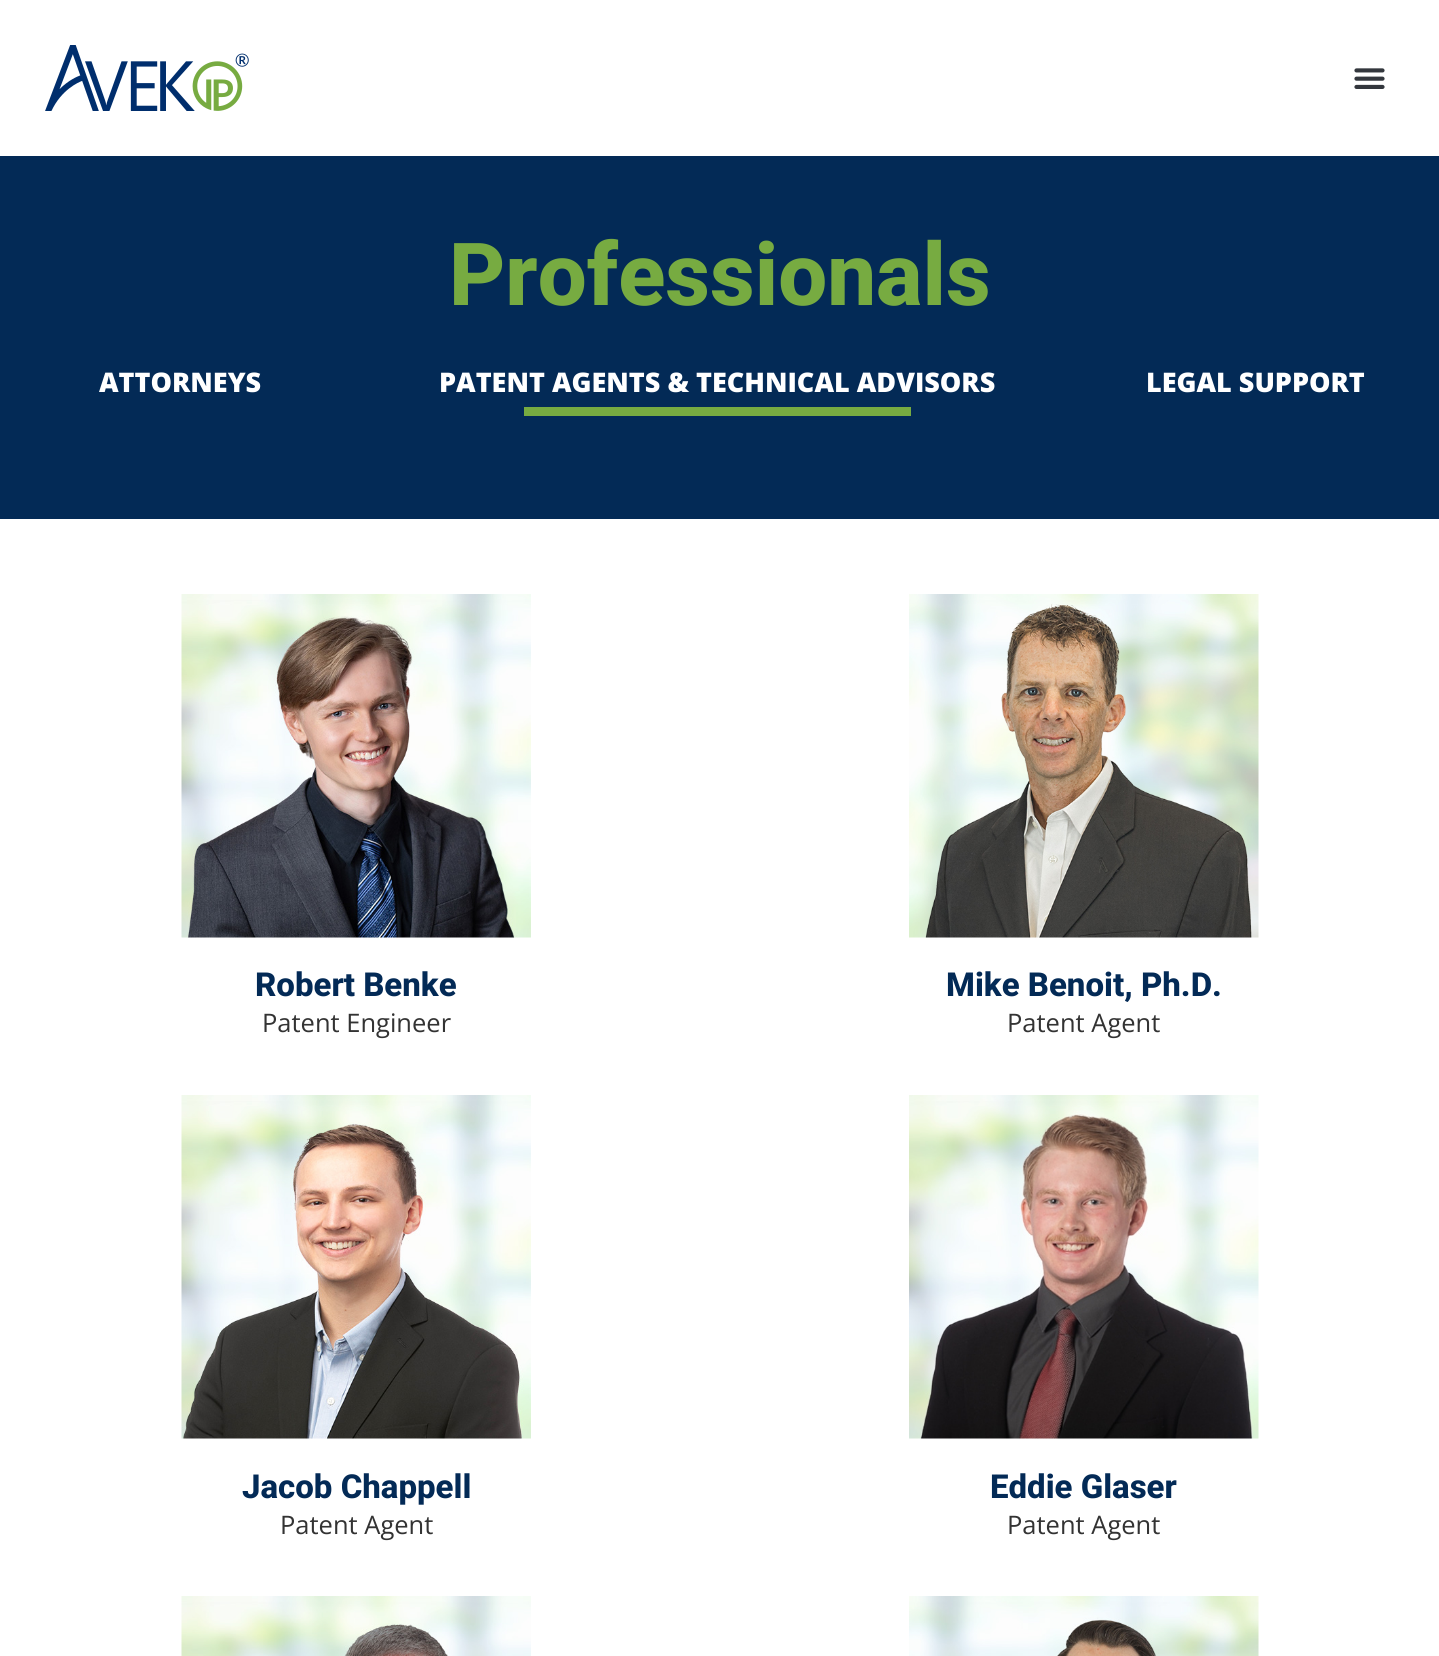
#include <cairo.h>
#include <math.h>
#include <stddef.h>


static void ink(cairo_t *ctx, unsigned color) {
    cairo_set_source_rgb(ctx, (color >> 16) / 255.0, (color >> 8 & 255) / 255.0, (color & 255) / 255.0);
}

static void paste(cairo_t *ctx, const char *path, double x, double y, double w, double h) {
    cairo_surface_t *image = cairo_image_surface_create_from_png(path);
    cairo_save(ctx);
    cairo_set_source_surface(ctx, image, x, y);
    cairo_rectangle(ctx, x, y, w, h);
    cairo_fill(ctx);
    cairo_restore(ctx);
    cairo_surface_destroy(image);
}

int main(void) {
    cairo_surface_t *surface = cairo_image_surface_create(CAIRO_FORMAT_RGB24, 1439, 1656);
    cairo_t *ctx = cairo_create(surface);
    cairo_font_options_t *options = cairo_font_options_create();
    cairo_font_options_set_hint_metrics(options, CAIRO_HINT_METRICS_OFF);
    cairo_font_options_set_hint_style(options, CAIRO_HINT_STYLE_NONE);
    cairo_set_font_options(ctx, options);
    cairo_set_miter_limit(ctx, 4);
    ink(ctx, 0xFFFFFF);
    cairo_paint(ctx);
    paste(ctx, "media/1.png", 45, 45, 204, 66);
    paste(ctx, "media/2.png", 1354, 68, 31, 21);
    ink(ctx, 0x032A56);
    cairo_rectangle(ctx, 0, 156, 1439, 363);
    cairo_fill(ctx);
    cairo_select_font_face(ctx, "Roboto ExtraBold", CAIRO_FONT_SLANT_NORMAL, CAIRO_FONT_WEIGHT_NORMAL);
    cairo_set_font_size(ctx, 87);
    ink(ctx, 0x77AB41);
    cairo_move_to(ctx, 449, 305);
    cairo_show_text(ctx, "Professionals");
    cairo_select_font_face(ctx, "Open Sans ExtraBold", CAIRO_FONT_SLANT_NORMAL, CAIRO_FONT_WEIGHT_NORMAL);
    cairo_set_font_size(ctx, 27);
    ink(ctx, 0xFFFFFF);
    cairo_move_to(ctx, 99, 392);
    cairo_show_text(ctx, "ATTORNEYS");
    cairo_move_to(ctx, 439, 392);
    cairo_show_text(ctx, "PATENT AGENTS & TECHNICAL ADVISORS");
    ink(ctx, 0x77AB41);
    cairo_rectangle(ctx, 524, 407, 387, 9);
    cairo_fill(ctx);
    ink(ctx, 0xFFFFFF);
    cairo_move_to(ctx, 1146, 392);
    cairo_show_text(ctx, "LEGAL SUPPORT");
    paste(ctx, "media/3.png", 181, 594, 350, 344);
    cairo_select_font_face(ctx, "Roboto ExtraBold", CAIRO_FONT_SLANT_NORMAL, CAIRO_FONT_WEIGHT_NORMAL);
    cairo_set_font_size(ctx, 33);
    ink(ctx, 0x032A56);
    cairo_move_to(ctx, 255, 996);
    cairo_show_text(ctx, "Robert Benke");
    cairo_select_font_face(ctx, "Open Sans", CAIRO_FONT_SLANT_NORMAL, CAIRO_FONT_WEIGHT_NORMAL);
    cairo_set_font_size(ctx, 25.5);
    ink(ctx, 0x333333);
    cairo_move_to(ctx, 262, 1032);
    cairo_show_text(ctx, "Patent Engineer");
    paste(ctx, "media/4.png", 909, 594, 350, 344);
    cairo_select_font_face(ctx, "Roboto ExtraBold", CAIRO_FONT_SLANT_NORMAL, CAIRO_FONT_WEIGHT_NORMAL);
    cairo_set_font_size(ctx, 33);
    ink(ctx, 0x032A56);
    cairo_move_to(ctx, 946, 996);
    cairo_show_text(ctx, "Mike Benoit, Ph.D.");
    cairo_select_font_face(ctx, "Open Sans", CAIRO_FONT_SLANT_NORMAL, CAIRO_FONT_WEIGHT_NORMAL);
    cairo_set_font_size(ctx, 25.5);
    ink(ctx, 0x333333);
    cairo_move_to(ctx, 1007, 1032);
    cairo_show_text(ctx, "Patent Agent");
    paste(ctx, "media/5.png", 181, 1095, 350, 344);
    cairo_select_font_face(ctx, "Roboto ExtraBold", CAIRO_FONT_SLANT_NORMAL, CAIRO_FONT_WEIGHT_NORMAL);
    cairo_set_font_size(ctx, 33);
    ink(ctx, 0x032A56);
    cairo_move_to(ctx, 242, 1498);
    cairo_show_text(ctx, "Jacob Chappell");
    cairo_select_font_face(ctx, "Open Sans", CAIRO_FONT_SLANT_NORMAL, CAIRO_FONT_WEIGHT_NORMAL);
    cairo_set_font_size(ctx, 25.5);
    ink(ctx, 0x333333);
    cairo_move_to(ctx, 280, 1534);
    cairo_show_text(ctx, "Patent Agent");
    paste(ctx, "media/6.png", 909, 1095, 350, 344);
    cairo_select_font_face(ctx, "Roboto ExtraBold", CAIRO_FONT_SLANT_NORMAL, CAIRO_FONT_WEIGHT_NORMAL);
    cairo_set_font_size(ctx, 33);
    ink(ctx, 0x032A56);
    cairo_move_to(ctx, 990, 1498);
    cairo_show_text(ctx, "Eddie Glaser");
    cairo_select_font_face(ctx, "Open Sans", CAIRO_FONT_SLANT_NORMAL, CAIRO_FONT_WEIGHT_NORMAL);
    cairo_set_font_size(ctx, 25.5);
    ink(ctx, 0x333333);
    cairo_move_to(ctx, 1007, 1534);
    cairo_show_text(ctx, "Patent Agent");
    paste(ctx, "media/7.png", 181, 1596, 350, 60);
    paste(ctx, "media/8.png", 909, 1596, 350, 60);
    cairo_surface_write_to_png(surface, "image.png");
    cairo_font_options_destroy(options);
    cairo_destroy(ctx);
    cairo_surface_destroy(surface);
    return 0;
}
